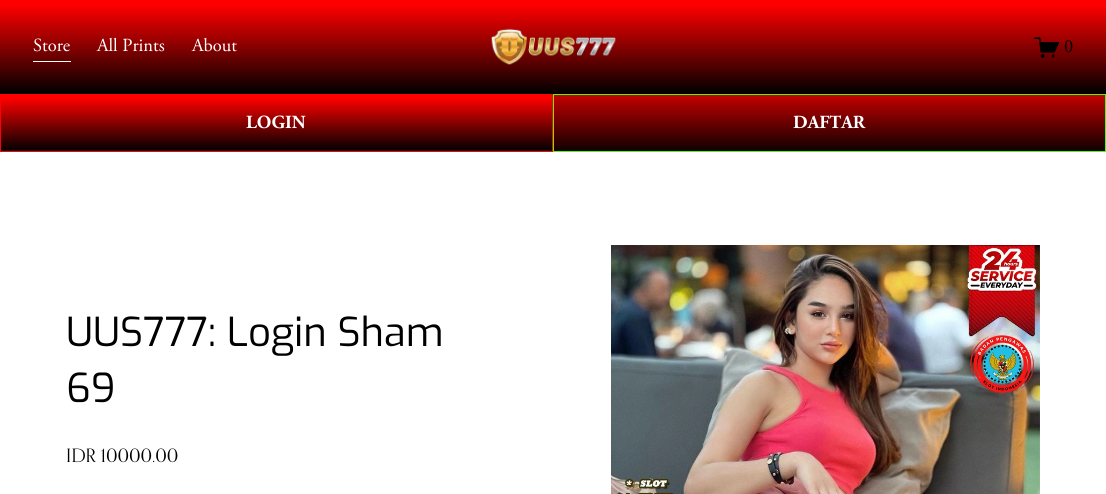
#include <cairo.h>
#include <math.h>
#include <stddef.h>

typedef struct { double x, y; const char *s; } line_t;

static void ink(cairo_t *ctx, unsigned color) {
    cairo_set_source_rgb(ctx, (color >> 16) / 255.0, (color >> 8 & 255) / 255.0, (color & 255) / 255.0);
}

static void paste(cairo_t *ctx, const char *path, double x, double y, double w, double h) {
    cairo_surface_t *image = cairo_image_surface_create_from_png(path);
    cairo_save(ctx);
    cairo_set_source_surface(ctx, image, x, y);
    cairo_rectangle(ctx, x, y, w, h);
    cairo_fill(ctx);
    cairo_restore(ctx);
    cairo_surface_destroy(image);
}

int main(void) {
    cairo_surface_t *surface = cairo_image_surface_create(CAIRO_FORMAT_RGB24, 1106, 494);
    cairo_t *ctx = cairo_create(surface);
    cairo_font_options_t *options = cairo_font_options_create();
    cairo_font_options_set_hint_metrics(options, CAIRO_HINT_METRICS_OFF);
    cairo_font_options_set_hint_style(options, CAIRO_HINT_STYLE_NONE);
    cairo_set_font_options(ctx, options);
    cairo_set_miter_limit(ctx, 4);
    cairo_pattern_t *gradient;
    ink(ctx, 0xFFFFFF);
    cairo_paint(ctx);
    gradient = cairo_pattern_create_linear(553, 0, 553, 94);
    cairo_pattern_add_color_stop_rgba(gradient, 0.05, 1, 0, 0, 1);
    cairo_pattern_add_color_stop_rgba(gradient, 1, 0, 0, 0, 1);
    cairo_set_source(ctx, gradient);
    cairo_pattern_destroy(gradient);
    cairo_rectangle(ctx, 0, 0, 1106, 94);
    cairo_fill(ctx);
    ink(ctx, 0xFFFFFF);
    cairo_rectangle(ctx, 33, 61, 38, 1);
    cairo_fill(ctx);
    cairo_select_font_face(ctx, "Adobe Garamond", CAIRO_FONT_SLANT_NORMAL, CAIRO_FONT_WEIGHT_NORMAL);
    cairo_set_font_size(ctx, 18.5);
    {
        static const line_t items[] = {
            {33, 51, "Store"},
            {97, 51, "All Prints"},
            {192, 51, "About"},
        };
        for (size_t i = 0; i < sizeof items / sizeof *items; i++) {
            cairo_move_to(ctx, items[i].x, items[i].y);
            cairo_show_text(ctx, items[i].s);
        }
    }
    paste(ctx, "media/1.png", 491, 28, 125, 37);
    paste(ctx, "media/2.png", 1034, 37, 25, 21);
    ink(ctx, 0x000000);
    cairo_move_to(ctx, 1064, 52);
    cairo_show_text(ctx, "0");
    gradient = cairo_pattern_create_linear(277, 95, 277, 151);
    cairo_pattern_add_color_stop_rgba(gradient, 0.05, 1, 0, 0, 1);
    cairo_pattern_add_color_stop_rgba(gradient, 1, 0, 0, 0, 1);
    cairo_set_source(ctx, gradient);
    cairo_pattern_destroy(gradient);
    cairo_rectangle(ctx, 1, 95, 551, 56);
    cairo_fill(ctx);
    cairo_rectangle(ctx, 0.5, 94.5, 552, 57);
    ink(ctx, 0xFF0000);
    cairo_set_line_width(ctx, 1);
    cairo_stroke(ctx);
    cairo_select_font_face(ctx, "Adobe Garamond", CAIRO_FONT_SLANT_NORMAL, CAIRO_FONT_WEIGHT_BOLD);
    ink(ctx, 0xFFFFFF);
    cairo_move_to(ctx, 246, 128);
    cairo_show_text(ctx, "LOGIN");
    gradient = cairo_pattern_create_linear(830, 95, 830, 151);
    cairo_pattern_add_color_stop_rgba(gradient, 0, 0.765, 0, 0, 1);
    cairo_pattern_add_color_stop_rgba(gradient, 1, 0.063, 0, 0, 1);
    cairo_set_source(ctx, gradient);
    cairo_pattern_destroy(gradient);
    cairo_rectangle(ctx, 554, 95, 551, 56);
    cairo_fill(ctx);
    cairo_rectangle(ctx, 553.5, 94.5, 552, 57);
    ink(ctx, 0x4BFF00);
    cairo_stroke(ctx);
    ink(ctx, 0xFFFFFF);
    cairo_move_to(ctx, 793, 128);
    cairo_show_text(ctx, "DAFTAR");
    cairo_select_font_face(ctx, "Exo", CAIRO_FONT_SLANT_NORMAL, CAIRO_FONT_WEIGHT_NORMAL);
    cairo_set_font_size(ctx, 39.9);
    ink(ctx, 0x000000);
    cairo_move_to(ctx, 66, 346);
    cairo_show_text(ctx, "UUS777: Login Sham");
    cairo_move_to(ctx, 66, 402);
    cairo_show_text(ctx, "69");
    cairo_select_font_face(ctx, "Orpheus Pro", CAIRO_FONT_SLANT_NORMAL, CAIRO_FONT_WEIGHT_NORMAL);
    cairo_set_font_size(ctx, 18.5);
    cairo_move_to(ctx, 66, 462);
    cairo_show_text(ctx, "IDR 10000.00");
    paste(ctx, "media/3.png", 611, 245, 429, 249);
    cairo_surface_write_to_png(surface, "image.png");
    cairo_font_options_destroy(options);
    cairo_destroy(ctx);
    cairo_surface_destroy(surface);
    return 0;
}
